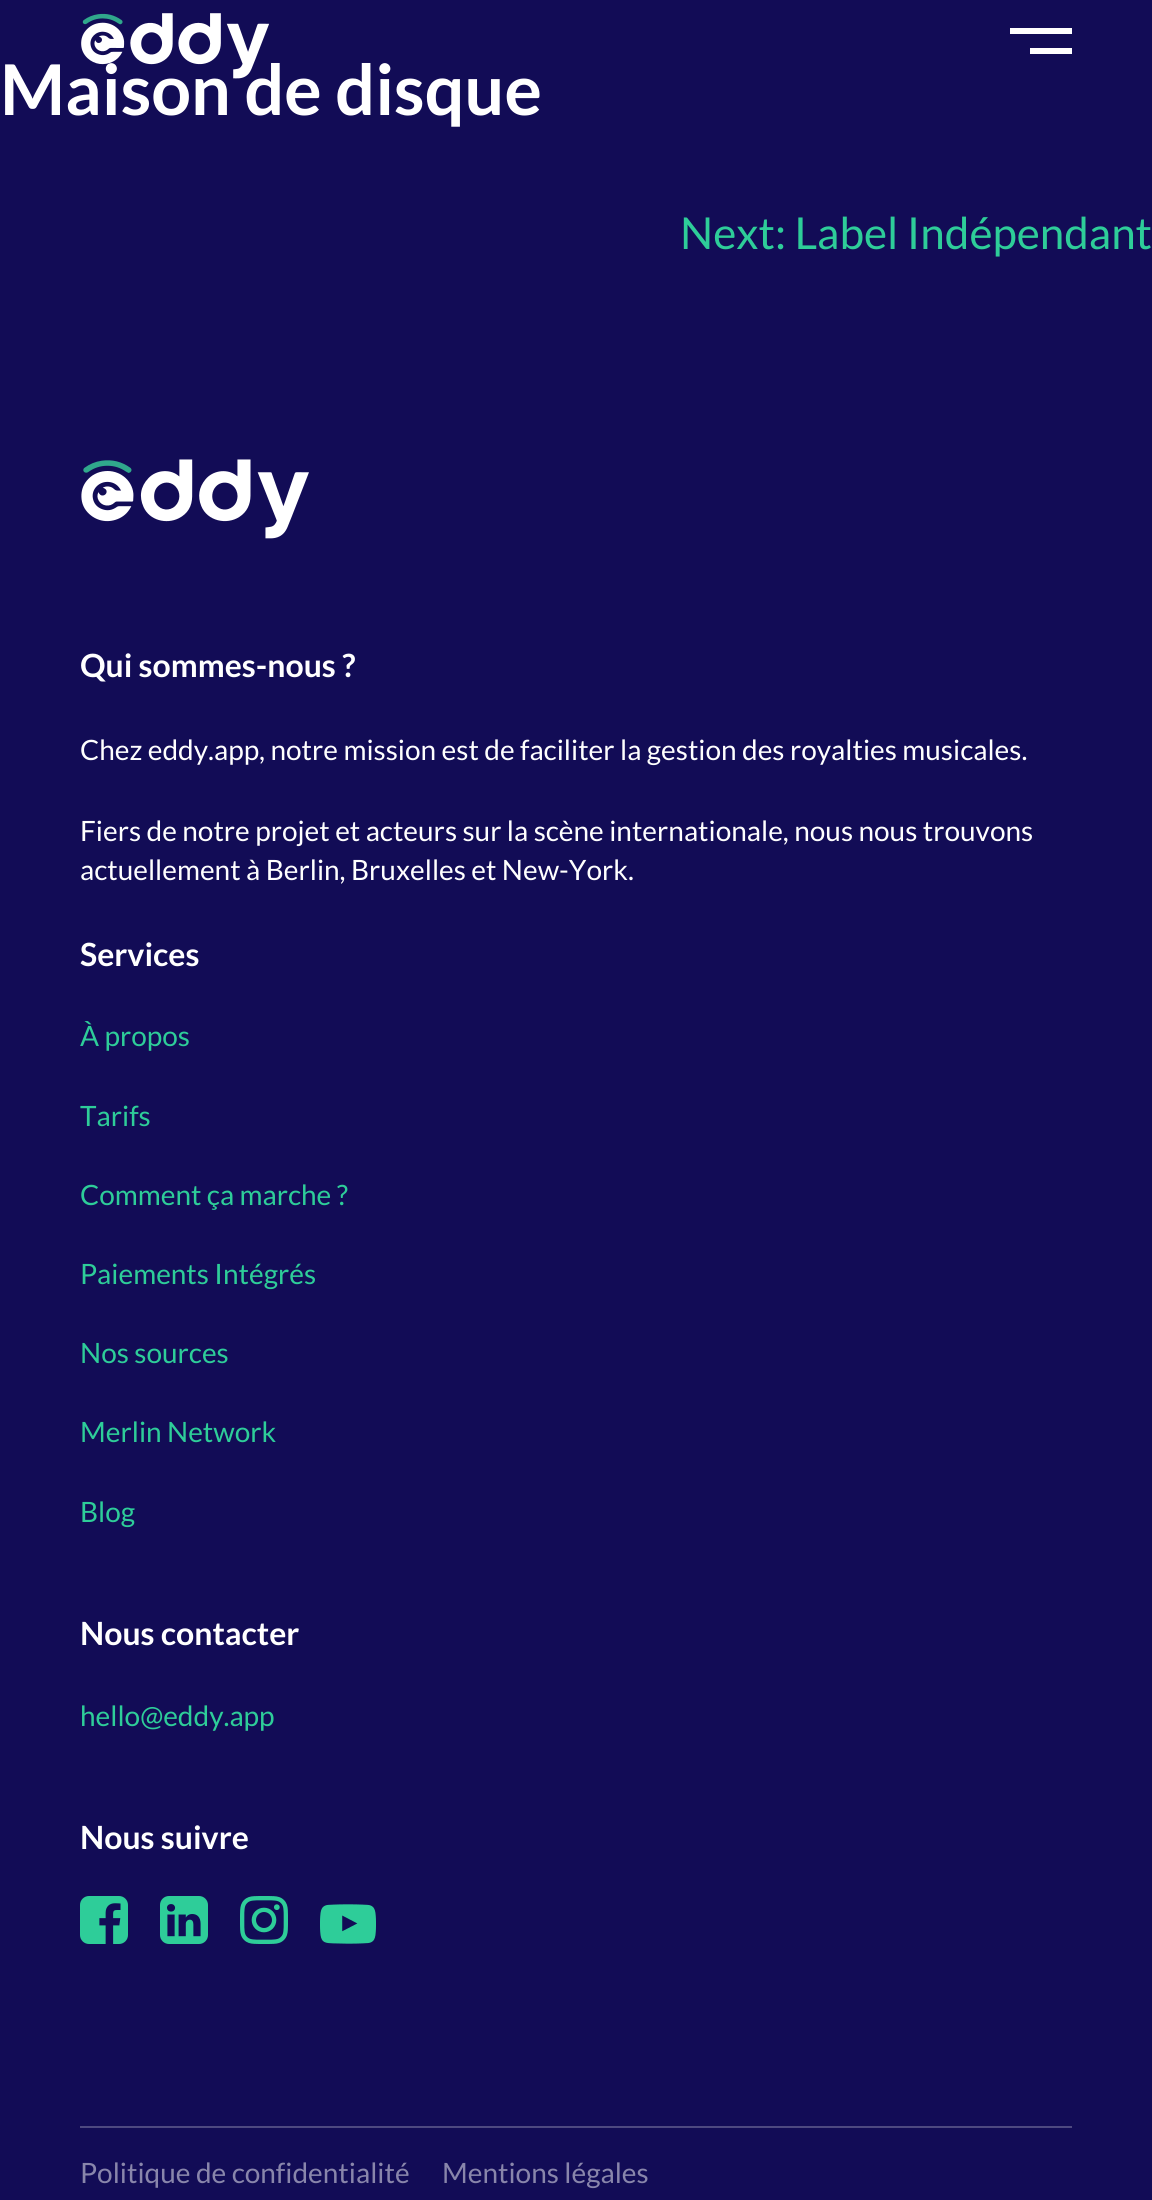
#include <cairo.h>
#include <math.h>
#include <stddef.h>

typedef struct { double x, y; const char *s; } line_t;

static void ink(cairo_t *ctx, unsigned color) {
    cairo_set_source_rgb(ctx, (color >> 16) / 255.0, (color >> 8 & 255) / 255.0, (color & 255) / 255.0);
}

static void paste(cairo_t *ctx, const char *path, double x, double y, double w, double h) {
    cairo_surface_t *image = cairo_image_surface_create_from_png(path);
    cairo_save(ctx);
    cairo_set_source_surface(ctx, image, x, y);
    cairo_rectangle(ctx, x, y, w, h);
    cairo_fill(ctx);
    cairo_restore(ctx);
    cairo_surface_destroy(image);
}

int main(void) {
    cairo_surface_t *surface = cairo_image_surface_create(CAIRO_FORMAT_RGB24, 1152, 2200);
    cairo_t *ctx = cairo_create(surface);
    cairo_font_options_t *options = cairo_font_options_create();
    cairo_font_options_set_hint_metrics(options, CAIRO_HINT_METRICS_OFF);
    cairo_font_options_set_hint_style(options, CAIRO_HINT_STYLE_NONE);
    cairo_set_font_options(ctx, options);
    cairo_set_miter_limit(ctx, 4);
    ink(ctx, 0x120C56);
    cairo_paint(ctx);
    cairo_select_font_face(ctx, "Lato", CAIRO_FONT_SLANT_NORMAL, CAIRO_FONT_WEIGHT_BOLD);
    cairo_set_font_size(ctx, 70);
    ink(ctx, 0xFFFFFF);
    cairo_move_to(ctx, 0, 115);
    cairo_show_text(ctx, "Maison de disque");
    paste(ctx, "media/1.png", 81, 13, 188, 66);
    cairo_rectangle(ctx, 1010, 28, 62, 6);
    cairo_fill(ctx);
    cairo_rectangle(ctx, 1030, 48, 42, 6);
    cairo_fill(ctx);
    cairo_select_font_face(ctx, "Lato", CAIRO_FONT_SLANT_NORMAL, CAIRO_FONT_WEIGHT_NORMAL);
    cairo_set_font_size(ctx, 44);
    ink(ctx, 0x2ECD99);
    cairo_move_to(ctx, 680, 249);
    cairo_show_text(ctx, "Next: Label Indépendant");
    paste(ctx, "media/2.png", 81, 459, 228, 80);
    cairo_select_font_face(ctx, "Lato", CAIRO_FONT_SLANT_NORMAL, CAIRO_FONT_WEIGHT_BOLD);
    cairo_set_font_size(ctx, 32);
    ink(ctx, 0xFFFFFF);
    cairo_move_to(ctx, 80, 677);
    cairo_show_text(ctx, "Qui sommes-nous ?");
    cairo_select_font_face(ctx, "Lato", CAIRO_FONT_SLANT_NORMAL, CAIRO_FONT_WEIGHT_NORMAL);
    cairo_set_font_size(ctx, 28);
    {
        static const line_t items[] = {
            {80, 760, "Chez eddy.app, notre mission est de faciliter la gestion des royalties musicales."},
            {80, 841, "Fiers de notre projet et acteurs sur la scène internationale, nous nous trouvons"},
            {80, 880, "actuellement à Berlin, Bruxelles et New-York."},
        };
        for (size_t i = 0; i < sizeof items / sizeof *items; i++) {
            cairo_move_to(ctx, items[i].x, items[i].y);
            cairo_show_text(ctx, items[i].s);
        }
    }
    cairo_select_font_face(ctx, "Lato", CAIRO_FONT_SLANT_NORMAL, CAIRO_FONT_WEIGHT_BOLD);
    cairo_set_font_size(ctx, 32);
    cairo_move_to(ctx, 80, 966);
    cairo_show_text(ctx, "Services");
    cairo_select_font_face(ctx, "Lato", CAIRO_FONT_SLANT_NORMAL, CAIRO_FONT_WEIGHT_NORMAL);
    cairo_set_font_size(ctx, 28);
    ink(ctx, 0x2ECD99);
    {
        static const line_t items[] = {
            {80, 1046, "À propos"},
            {80, 1126, "Tarifs"},
            {80, 1205, "Comment ça marche ?"},
            {80, 1284, "Paiements Intégrés"},
            {80, 1363, "Nos sources"},
            {80, 1442, "Merlin Network"},
            {80, 1522, "Blog"},
        };
        for (size_t i = 0; i < sizeof items / sizeof *items; i++) {
            cairo_move_to(ctx, items[i].x, items[i].y);
            cairo_show_text(ctx, items[i].s);
        }
    }
    cairo_select_font_face(ctx, "Lato", CAIRO_FONT_SLANT_NORMAL, CAIRO_FONT_WEIGHT_BOLD);
    cairo_set_font_size(ctx, 32);
    ink(ctx, 0xFFFFFF);
    cairo_move_to(ctx, 80, 1645);
    cairo_show_text(ctx, "Nous contacter");
    cairo_select_font_face(ctx, "Lato", CAIRO_FONT_SLANT_NORMAL, CAIRO_FONT_WEIGHT_NORMAL);
    cairo_set_font_size(ctx, 28);
    ink(ctx, 0x2ECD99);
    cairo_move_to(ctx, 80, 1726);
    cairo_show_text(ctx, "hello@eddy.app");
    cairo_select_font_face(ctx, "Lato", CAIRO_FONT_SLANT_NORMAL, CAIRO_FONT_WEIGHT_BOLD);
    cairo_set_font_size(ctx, 32);
    ink(ctx, 0xFFFFFF);
    cairo_move_to(ctx, 80, 1849);
    cairo_show_text(ctx, "Nous suivre");
    paste(ctx, "media/3.png", 80, 1896, 48, 48);
    paste(ctx, "media/4.png", 160, 1896, 48, 48);
    paste(ctx, "media/5.png", 240, 1896, 48, 48);
    paste(ctx, "media/6.png", 320, 1904, 56, 40);
    ink(ctx, 0x4D4980);
    cairo_rectangle(ctx, 80, 2126, 992, 2);
    cairo_fill(ctx);
    cairo_select_font_face(ctx, "Lato", CAIRO_FONT_SLANT_NORMAL, CAIRO_FONT_WEIGHT_NORMAL);
    cairo_set_font_size(ctx, 28);
    ink(ctx, 0x8986AB);
    cairo_move_to(ctx, 80, 2183);
    cairo_show_text(ctx, "Politique de confidentialité");
    cairo_move_to(ctx, 442, 2183);
    cairo_show_text(ctx, "Mentions légales");
    cairo_surface_write_to_png(surface, "image.png");
    cairo_font_options_destroy(options);
    cairo_destroy(ctx);
    cairo_surface_destroy(surface);
    return 0;
}
